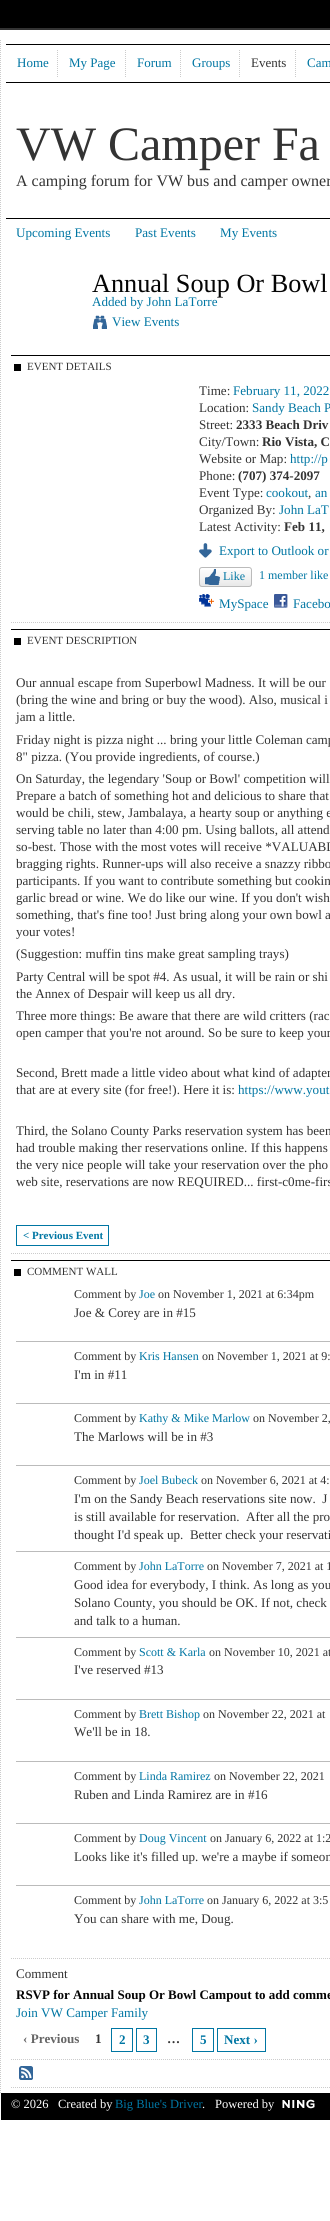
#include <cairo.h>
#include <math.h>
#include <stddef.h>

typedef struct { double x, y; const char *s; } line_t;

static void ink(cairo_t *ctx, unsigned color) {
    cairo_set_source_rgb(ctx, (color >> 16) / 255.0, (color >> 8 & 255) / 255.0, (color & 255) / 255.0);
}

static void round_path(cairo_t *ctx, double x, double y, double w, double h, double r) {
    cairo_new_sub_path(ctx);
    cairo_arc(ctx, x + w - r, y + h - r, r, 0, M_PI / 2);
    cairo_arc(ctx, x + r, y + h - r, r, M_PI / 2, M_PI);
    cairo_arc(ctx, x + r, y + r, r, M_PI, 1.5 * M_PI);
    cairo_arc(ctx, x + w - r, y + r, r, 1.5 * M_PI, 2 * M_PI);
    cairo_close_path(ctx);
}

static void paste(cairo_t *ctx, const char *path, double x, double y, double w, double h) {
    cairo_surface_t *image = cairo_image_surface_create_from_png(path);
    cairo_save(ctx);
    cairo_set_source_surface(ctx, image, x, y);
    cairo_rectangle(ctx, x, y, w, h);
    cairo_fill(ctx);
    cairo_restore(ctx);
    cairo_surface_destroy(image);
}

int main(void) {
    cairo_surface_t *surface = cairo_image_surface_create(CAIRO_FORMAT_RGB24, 330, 2221);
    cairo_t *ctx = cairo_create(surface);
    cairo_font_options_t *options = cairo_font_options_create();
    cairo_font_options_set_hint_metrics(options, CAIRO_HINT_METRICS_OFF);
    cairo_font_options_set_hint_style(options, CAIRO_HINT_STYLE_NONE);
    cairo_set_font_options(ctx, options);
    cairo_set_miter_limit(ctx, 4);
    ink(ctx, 0xFFFFFF);
    cairo_paint(ctx);
    ink(ctx, 0x000000);
    cairo_rectangle(ctx, 0, 0, 330, 28);
    cairo_fill(ctx);
    ink(ctx, 0x333333);
    cairo_rectangle(ctx, 0, 28, 330, 2);
    cairo_fill(ctx);
    cairo_new_path(ctx);
    cairo_move_to(ctx, 0.5, 40);
    cairo_line_to(ctx, 0.5, 2093);
    ink(ctx, 0xCCCCCC);
    cairo_set_line_width(ctx, 1);
    cairo_set_dash(ctx, (double[]){1, 1}, 2, 0);
    cairo_stroke(ctx);
    ink(ctx, 0x000000);
    cairo_rectangle(ctx, 6, 44, 324, 1);
    cairo_fill(ctx);
    cairo_rectangle(ctx, 6, 82, 324, 1);
    cairo_fill(ctx);
    cairo_new_path(ctx);
    cairo_move_to(ctx, 57.5, 50);
    cairo_line_to(ctx, 57.5, 77);
    ink(ctx, 0xCCCCCC);
    cairo_stroke(ctx);
    cairo_select_font_face(ctx, "Liberation Serif", CAIRO_FONT_SLANT_NORMAL, CAIRO_FONT_WEIGHT_NORMAL);
    cairo_set_font_size(ctx, 13);
    ink(ctx, 0x0076A3);
    cairo_move_to(ctx, 17, 67);
    cairo_show_text(ctx, "Home");
    cairo_new_path(ctx);
    cairo_move_to(ctx, 125.5, 50);
    cairo_line_to(ctx, 125.5, 77);
    ink(ctx, 0xCCCCCC);
    cairo_stroke(ctx);
    ink(ctx, 0x0076A3);
    cairo_move_to(ctx, 69, 67);
    cairo_show_text(ctx, "My Page");
    cairo_new_path(ctx);
    cairo_move_to(ctx, 180.5, 50);
    cairo_line_to(ctx, 180.5, 77);
    ink(ctx, 0xCCCCCC);
    cairo_stroke(ctx);
    ink(ctx, 0x0076A3);
    cairo_move_to(ctx, 137, 67);
    cairo_show_text(ctx, "Forum");
    cairo_new_path(ctx);
    cairo_move_to(ctx, 239.5, 50);
    cairo_line_to(ctx, 239.5, 77);
    ink(ctx, 0xCCCCCC);
    cairo_stroke(ctx);
    ink(ctx, 0x0076A3);
    cairo_move_to(ctx, 192, 67);
    cairo_show_text(ctx, "Groups");
    cairo_new_path(ctx);
    cairo_move_to(ctx, 295.5, 50);
    cairo_line_to(ctx, 295.5, 77);
    ink(ctx, 0xCCCCCC);
    cairo_stroke(ctx);
    ink(ctx, 0x333333);
    cairo_move_to(ctx, 251, 67);
    cairo_show_text(ctx, "Events");
    ink(ctx, 0x0076A3);
    cairo_move_to(ctx, 307, 67);
    cairo_show_text(ctx, "Cam");
    cairo_set_font_size(ctx, 48);
    ink(ctx, 0x333333);
    cairo_move_to(ctx, 16, 160);
    cairo_show_text(ctx, "VW Camper Fa");
    cairo_set_font_size(ctx, 16);
    cairo_move_to(ctx, 16, 186);
    cairo_show_text(ctx, "A camping forum for VW bus and camper owner");
    ink(ctx, 0x000000);
    cairo_rectangle(ctx, 6, 218, 324, 1);
    cairo_fill(ctx);
    cairo_set_font_size(ctx, 13.1);
    ink(ctx, 0x0076A3);
    {
        static const line_t items[] = {
            {16, 237, "Upcoming Events"},
            {135, 237, "Past Events"},
            {220, 237, "My Events"},
        };
        for (size_t i = 0; i < sizeof items / sizeof *items; i++) {
            cairo_move_to(ctx, items[i].x, items[i].y);
            cairo_show_text(ctx, items[i].s);
        }
    }
    cairo_set_font_size(ctx, 26.25);
    ink(ctx, 0x040404);
    cairo_move_to(ctx, 92, 292);
    cairo_show_text(ctx, "Annual Soup Or Bowl");
    cairo_set_font_size(ctx, 13.1);
    ink(ctx, 0x0076A3);
    cairo_move_to(ctx, 92, 306);
    cairo_show_text(ctx, "Added by John LaTorre");
    paste(ctx, "media/1.png", 93, 315, 14, 14);
    cairo_move_to(ctx, 112, 326);
    cairo_show_text(ctx, "View Events");
    ink(ctx, 0x000000);
    cairo_rectangle(ctx, 11, 355, 319, 1);
    cairo_fill(ctx);
    cairo_rectangle(ctx, 14, 364, 7, 7);
    cairo_fill(ctx);
    cairo_set_font_size(ctx, 11);
    ink(ctx, 0x333333);
    cairo_move_to(ctx, 27, 370);
    cairo_show_text(ctx, "EVENT DETAILS");
    cairo_new_path(ctx);
    cairo_move_to(ctx, 11, 622.5);
    cairo_line_to(ctx, 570, 622.5);
    ink(ctx, 0xCCCCCC);
    cairo_stroke(ctx);
    cairo_set_font_size(ctx, 13.1);
    ink(ctx, 0x333333);
    cairo_move_to(ctx, 199, 395);
    cairo_show_text(ctx, "Time:");
    ink(ctx, 0x0076A3);
    cairo_move_to(ctx, 233, 395);
    cairo_show_text(ctx, "February 11, 2022");
    ink(ctx, 0x333333);
    cairo_move_to(ctx, 199, 412);
    cairo_show_text(ctx, "Location:");
    ink(ctx, 0x0076A3);
    cairo_move_to(ctx, 252, 412);
    cairo_show_text(ctx, "Sandy Beach P");
    ink(ctx, 0x333333);
    cairo_move_to(ctx, 199, 429);
    cairo_show_text(ctx, "Street:");
    cairo_select_font_face(ctx, "Liberation Serif", CAIRO_FONT_SLANT_NORMAL, CAIRO_FONT_WEIGHT_BOLD);
    cairo_move_to(ctx, 236, 429);
    cairo_show_text(ctx, "2333 Beach Driv");
    cairo_select_font_face(ctx, "Liberation Serif", CAIRO_FONT_SLANT_NORMAL, CAIRO_FONT_WEIGHT_NORMAL);
    cairo_move_to(ctx, 199, 446);
    cairo_show_text(ctx, "City/Town:");
    cairo_select_font_face(ctx, "Liberation Serif", CAIRO_FONT_SLANT_NORMAL, CAIRO_FONT_WEIGHT_BOLD);
    cairo_move_to(ctx, 262, 446);
    cairo_show_text(ctx, "Rio Vista, C");
    cairo_select_font_face(ctx, "Liberation Serif", CAIRO_FONT_SLANT_NORMAL, CAIRO_FONT_WEIGHT_NORMAL);
    cairo_move_to(ctx, 199, 463);
    cairo_show_text(ctx, "Website or Map:");
    ink(ctx, 0x0076A3);
    cairo_move_to(ctx, 290, 463);
    cairo_show_text(ctx, "http://p");
    ink(ctx, 0x333333);
    cairo_move_to(ctx, 199, 480);
    cairo_show_text(ctx, "Phone:");
    cairo_select_font_face(ctx, "Liberation Serif", CAIRO_FONT_SLANT_NORMAL, CAIRO_FONT_WEIGHT_BOLD);
    cairo_move_to(ctx, 238, 480);
    cairo_show_text(ctx, "(707) 374-2097");
    cairo_select_font_face(ctx, "Liberation Serif", CAIRO_FONT_SLANT_NORMAL, CAIRO_FONT_WEIGHT_NORMAL);
    cairo_move_to(ctx, 199, 497);
    cairo_show_text(ctx, "Event Type:");
    ink(ctx, 0x0076A3);
    cairo_move_to(ctx, 266, 497);
    cairo_show_text(ctx, "cookout");
    ink(ctx, 0x333333);
    cairo_move_to(ctx, 308, 497);
    cairo_show_text(ctx, ",");
    ink(ctx, 0x0076A3);
    cairo_move_to(ctx, 315, 497);
    cairo_show_text(ctx, "an");
    ink(ctx, 0x333333);
    cairo_move_to(ctx, 199, 514);
    cairo_show_text(ctx, "Organized By:");
    ink(ctx, 0x0076A3);
    cairo_move_to(ctx, 279, 514);
    cairo_show_text(ctx, "John LaT");
    ink(ctx, 0x333333);
    cairo_move_to(ctx, 199, 531);
    cairo_show_text(ctx, "Latest Activity:");
    cairo_select_font_face(ctx, "Liberation Serif", CAIRO_FONT_SLANT_NORMAL, CAIRO_FONT_WEIGHT_BOLD);
    cairo_move_to(ctx, 284, 531);
    cairo_show_text(ctx, "Feb 11,");
    paste(ctx, "media/2.png", 199, 543, 13, 15);
    cairo_select_font_face(ctx, "Liberation Serif", CAIRO_FONT_SLANT_NORMAL, CAIRO_FONT_WEIGHT_NORMAL);
    ink(ctx, 0x0076A3);
    cairo_move_to(ctx, 219, 555);
    cairo_show_text(ctx, "Export to Outlook or");
    paste(ctx, "media/3.png", 199, 570, 53, 17);
    round_path(ctx, 199.5, 567.5, 52, 19, 2.5);
    ink(ctx, 0xBBBBBB);
    cairo_set_dash(ctx, NULL, 0, 0);
    cairo_stroke(ctx);
    paste(ctx, "media/4.png", 205, 569, 15, 16);
    cairo_set_font_size(ctx, 12);
    ink(ctx, 0x0076A3);
    cairo_move_to(ctx, 223, 580);
    cairo_show_text(ctx, "Like");
    cairo_move_to(ctx, 259, 579);
    cairo_show_text(ctx, "1 member like");
    paste(ctx, "media/5.png", 199, 594, 15, 13);
    cairo_set_font_size(ctx, 13.1);
    cairo_move_to(ctx, 219, 608);
    cairo_show_text(ctx, "MySpace");
    paste(ctx, "media/6.png", 274, 594, 14, 14);
    cairo_move_to(ctx, 293, 608);
    cairo_show_text(ctx, "Facebo");
    ink(ctx, 0x000000);
    cairo_rectangle(ctx, 11, 629, 319, 1);
    cairo_fill(ctx);
    cairo_rectangle(ctx, 14, 638, 7, 7);
    cairo_fill(ctx);
    cairo_set_font_size(ctx, 11);
    ink(ctx, 0x333333);
    cairo_move_to(ctx, 27, 644);
    cairo_show_text(ctx, "EVENT DESCRIPTION");
    cairo_new_path(ctx);
    cairo_move_to(ctx, 11, 1253.5);
    cairo_line_to(ctx, 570, 1253.5);
    ink(ctx, 0xCCCCCC);
    cairo_set_dash(ctx, (double[]){1, 1}, 2, 0);
    cairo_stroke(ctx);
    cairo_set_font_size(ctx, 13.1);
    ink(ctx, 0x333333);
    {
        static const line_t items[] = {
            {16, 687, "Our annual escape from Superbowl Madness. It will be our"},
            {16, 704, "(bring the wine and bring or buy the wood). Also, musical i"},
            {16, 721, "jam a little."},
            {16, 744, "Friday night is pizza night ... bring your little Coleman camp"},
            {16, 761, "8\" pizza. (You provide ingredients, of course.)"},
            {16, 783, "On Saturday, the legendary 'Soup or Bowl' competition will"},
            {16, 800, "Prepare a batch of something hot and delicious to share that"},
            {16, 817, "would be chili, stew, Jambalaya, a hearty soup or anything e"},
            {16, 834, "serving table no later than 4:00 pm. Using ballots, all attend"},
            {16, 851, "so-best. Those with the most votes will receive *VALUABL"},
            {16, 868, "bragging rights. Runner-ups will also receive a snazzy ribbo"},
            {16, 885, "participants. If you want to contribute something but cookin"},
            {16, 902, "garlic bread or wine. We do like our wine. If you don't wish"},
            {16, 919, "something, that's fine too! Just bring along your own bowl a"},
            {16, 936, "your votes!"},
            {16, 958, "(Suggestion: muffin tins make great sampling trays)"},
            {16, 981, "Party Central will be spot #4. As usual, it will be rain or shi"},
            {16, 998, "the Annex of Despair will keep us all dry."},
            {16, 1020, "Three more things: Be aware that there are wild critters (rac"},
            {16, 1037, "open camper that you're not around. So be sure to keep your"},
            {16, 1077, "Second, Brett made a little video about what kind of adapter"},
            {16, 1094, "that are at every site (for free!). Here it is:"},
        };
        for (size_t i = 0; i < sizeof items / sizeof *items; i++) {
            cairo_move_to(ctx, items[i].x, items[i].y);
            cairo_show_text(ctx, items[i].s);
        }
    }
    ink(ctx, 0x0076A3);
    cairo_move_to(ctx, 238, 1094);
    cairo_show_text(ctx, "https://www.yout");
    ink(ctx, 0x333333);
    {
        static const line_t items[] = {
            {16, 1135, "Third, the Solano County Parks reservation system has been"},
            {16, 1152, "had trouble making ther reservations online. If this happens"},
            {16, 1169, "the very nice people will take your reservation over the pho"},
            {16, 1186, "web site, reservations are now REQUIRED... first-c0me-firs"},
        };
        for (size_t i = 0; i < sizeof items / sizeof *items; i++) {
            cairo_move_to(ctx, items[i].x, items[i].y);
            cairo_show_text(ctx, items[i].s);
        }
    }
    cairo_rectangle(ctx, 16.5, 1225.5, 92, 20);
    ink(ctx, 0x0076A3);
    cairo_set_dash(ctx, NULL, 0, 0);
    cairo_stroke(ctx);
    cairo_select_font_face(ctx, "Liberation Serif", CAIRO_FONT_SLANT_NORMAL, CAIRO_FONT_WEIGHT_BOLD);
    cairo_set_font_size(ctx, 11);
    cairo_move_to(ctx, 23, 1239);
    cairo_show_text(ctx, "< Previous Event");
    ink(ctx, 0x000000);
    cairo_rectangle(ctx, 11, 1260, 319, 1);
    cairo_fill(ctx);
    cairo_rectangle(ctx, 14, 1269, 7, 7);
    cairo_fill(ctx);
    cairo_select_font_face(ctx, "Liberation Serif", CAIRO_FONT_SLANT_NORMAL, CAIRO_FONT_WEIGHT_NORMAL);
    ink(ctx, 0x333333);
    cairo_move_to(ctx, 27, 1275);
    cairo_show_text(ctx, "COMMENT WALL");
    cairo_new_path(ctx);
    cairo_move_to(ctx, 11, 1958.5);
    cairo_line_to(ctx, 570, 1958.5);
    ink(ctx, 0xCCCCCC);
    cairo_set_dash(ctx, (double[]){1, 1}, 2, 0);
    cairo_stroke(ctx);
    ink(ctx, 0xBBBBBB);
    cairo_rectangle(ctx, 16, 1341, 314, 1);
    cairo_fill(ctx);
    cairo_set_font_size(ctx, 12);
    ink(ctx, 0x333333);
    cairo_move_to(ctx, 74, 1298);
    cairo_show_text(ctx, "Comment by");
    ink(ctx, 0x0076A3);
    cairo_move_to(ctx, 139, 1298);
    cairo_show_text(ctx, "Joe");
    ink(ctx, 0x333333);
    cairo_move_to(ctx, 158, 1298);
    cairo_show_text(ctx, "on November 1, 2021 at 6:34pm");
    cairo_set_font_size(ctx, 13.1);
    cairo_move_to(ctx, 74, 1317);
    cairo_show_text(ctx, "Joe & Corey are in #15");
    ink(ctx, 0xBBBBBB);
    cairo_rectangle(ctx, 16, 1403, 314, 1);
    cairo_fill(ctx);
    cairo_set_font_size(ctx, 12);
    ink(ctx, 0x333333);
    cairo_move_to(ctx, 74, 1360);
    cairo_show_text(ctx, "Comment by");
    ink(ctx, 0x0076A3);
    cairo_move_to(ctx, 139, 1360);
    cairo_show_text(ctx, "Kris Hansen");
    ink(ctx, 0x333333);
    cairo_move_to(ctx, 202, 1360);
    cairo_show_text(ctx, "on November 1, 2021 at 9:");
    cairo_set_font_size(ctx, 13.1);
    cairo_move_to(ctx, 74, 1379);
    cairo_show_text(ctx, "I'm in #11");
    ink(ctx, 0xBBBBBB);
    cairo_rectangle(ctx, 16, 1465, 314, 1);
    cairo_fill(ctx);
    cairo_set_font_size(ctx, 12);
    ink(ctx, 0x333333);
    cairo_move_to(ctx, 74, 1422);
    cairo_show_text(ctx, "Comment by");
    ink(ctx, 0x0076A3);
    cairo_move_to(ctx, 139, 1422);
    cairo_show_text(ctx, "Kathy & Mike Marlow");
    ink(ctx, 0x333333);
    cairo_move_to(ctx, 253, 1422);
    cairo_show_text(ctx, "on November 2,");
    cairo_set_font_size(ctx, 13.1);
    cairo_move_to(ctx, 74, 1441);
    cairo_show_text(ctx, "The Marlows will be in #3");
    ink(ctx, 0xBBBBBB);
    cairo_rectangle(ctx, 16, 1551, 314, 1);
    cairo_fill(ctx);
    cairo_set_font_size(ctx, 12);
    ink(ctx, 0x333333);
    cairo_move_to(ctx, 74, 1484);
    cairo_show_text(ctx, "Comment by");
    ink(ctx, 0x0076A3);
    cairo_move_to(ctx, 139, 1484);
    cairo_show_text(ctx, "Joel Bubeck");
    ink(ctx, 0x333333);
    cairo_move_to(ctx, 201, 1484);
    cairo_show_text(ctx, "on November 6, 2021 at 4:");
    cairo_set_font_size(ctx, 13.1);
    {
        static const line_t items[] = {
            {74, 1503, "I'm on the Sandy Beach reservations site now.  J"},
            {74, 1521, "is still available for reservation.  After all the pro"},
            {74, 1539, "thought I'd speak up.  Better check your reservati"},
        };
        for (size_t i = 0; i < sizeof items / sizeof *items; i++) {
            cairo_move_to(ctx, items[i].x, items[i].y);
            cairo_show_text(ctx, items[i].s);
        }
    }
    ink(ctx, 0xBBBBBB);
    cairo_rectangle(ctx, 16, 1637, 314, 1);
    cairo_fill(ctx);
    cairo_set_font_size(ctx, 12);
    ink(ctx, 0x333333);
    cairo_move_to(ctx, 74, 1570);
    cairo_show_text(ctx, "Comment by");
    ink(ctx, 0x0076A3);
    cairo_move_to(ctx, 139, 1570);
    cairo_show_text(ctx, "John LaTorre");
    ink(ctx, 0x333333);
    cairo_move_to(ctx, 207, 1570);
    cairo_show_text(ctx, "on November 7, 2021 at 1");
    cairo_set_font_size(ctx, 13.1);
    {
        static const line_t items[] = {
            {74, 1589, "Good idea for everybody, I think. As long as you"},
            {74, 1607, "Solano County, you should be OK. If not, check"},
            {74, 1625, "and talk to a human."},
        };
        for (size_t i = 0; i < sizeof items / sizeof *items; i++) {
            cairo_move_to(ctx, items[i].x, items[i].y);
            cairo_show_text(ctx, items[i].s);
        }
    }
    ink(ctx, 0xBBBBBB);
    cairo_rectangle(ctx, 16, 1699, 314, 1);
    cairo_fill(ctx);
    cairo_set_font_size(ctx, 12);
    ink(ctx, 0x333333);
    cairo_move_to(ctx, 74, 1656);
    cairo_show_text(ctx, "Comment by");
    ink(ctx, 0x0076A3);
    cairo_move_to(ctx, 139, 1656);
    cairo_show_text(ctx, "Scott & Karla");
    ink(ctx, 0x333333);
    cairo_move_to(ctx, 209, 1656);
    cairo_show_text(ctx, "on November 10, 2021 at");
    cairo_set_font_size(ctx, 13.1);
    cairo_move_to(ctx, 74, 1674);
    cairo_show_text(ctx, "I've reserved #13");
    ink(ctx, 0xBBBBBB);
    cairo_rectangle(ctx, 16, 1761, 314, 1);
    cairo_fill(ctx);
    cairo_set_font_size(ctx, 12);
    ink(ctx, 0x333333);
    cairo_move_to(ctx, 74, 1718);
    cairo_show_text(ctx, "Comment by");
    ink(ctx, 0x0076A3);
    cairo_move_to(ctx, 139, 1718);
    cairo_show_text(ctx, "Brett Bishop");
    ink(ctx, 0x333333);
    cairo_move_to(ctx, 203, 1718);
    cairo_show_text(ctx, "on November 22, 2021 at");
    cairo_set_font_size(ctx, 13.1);
    cairo_move_to(ctx, 74, 1736);
    cairo_show_text(ctx, "We'll be in 18.");
    ink(ctx, 0xBBBBBB);
    cairo_rectangle(ctx, 16, 1823, 314, 1);
    cairo_fill(ctx);
    cairo_set_font_size(ctx, 12);
    ink(ctx, 0x333333);
    cairo_move_to(ctx, 74, 1780);
    cairo_show_text(ctx, "Comment by");
    ink(ctx, 0x0076A3);
    cairo_move_to(ctx, 139, 1780);
    cairo_show_text(ctx, "Linda Ramirez");
    ink(ctx, 0x333333);
    cairo_move_to(ctx, 214, 1780);
    cairo_show_text(ctx, "on November 22, 2021");
    cairo_set_font_size(ctx, 13.1);
    cairo_move_to(ctx, 74, 1799);
    cairo_show_text(ctx, "Ruben and Linda Ramirez are in #16");
    ink(ctx, 0xBBBBBB);
    cairo_rectangle(ctx, 16, 1885, 314, 1);
    cairo_fill(ctx);
    cairo_set_font_size(ctx, 12);
    ink(ctx, 0x333333);
    cairo_move_to(ctx, 74, 1842);
    cairo_show_text(ctx, "Comment by");
    ink(ctx, 0x0076A3);
    cairo_move_to(ctx, 139, 1842);
    cairo_show_text(ctx, "Doug Vincent");
    ink(ctx, 0x333333);
    cairo_move_to(ctx, 210, 1842);
    cairo_show_text(ctx, "on January 6, 2022 at 1:2");
    cairo_set_font_size(ctx, 13.1);
    cairo_move_to(ctx, 74, 1861);
    cairo_show_text(ctx, "Looks like it's filled up. we're a maybe if someon");
    cairo_set_font_size(ctx, 12);
    cairo_move_to(ctx, 74, 1904);
    cairo_show_text(ctx, "Comment by");
    ink(ctx, 0x0076A3);
    cairo_move_to(ctx, 139, 1904);
    cairo_show_text(ctx, "John LaTorre");
    ink(ctx, 0x333333);
    cairo_move_to(ctx, 207, 1904);
    cairo_show_text(ctx, "on January 6, 2022 at 3:5");
    cairo_set_font_size(ctx, 13.1);
    cairo_move_to(ctx, 74, 1923);
    cairo_show_text(ctx, "You can share with me, Doug.");
    cairo_new_path(ctx);
    cairo_move_to(ctx, 11, 2059.5);
    cairo_line_to(ctx, 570, 2059.5);
    ink(ctx, 0xCCCCCC);
    cairo_stroke(ctx);
    ink(ctx, 0x333333);
    cairo_move_to(ctx, 16, 1978);
    cairo_show_text(ctx, "Comment");
    cairo_select_font_face(ctx, "Liberation Serif", CAIRO_FONT_SLANT_NORMAL, CAIRO_FONT_WEIGHT_BOLD);
    cairo_set_font_size(ctx, 13);
    ink(ctx, 0x040404);
    cairo_move_to(ctx, 16, 1999);
    cairo_show_text(ctx, "RSVP for Annual Soup Or Bowl Campout to add comme");
    cairo_select_font_face(ctx, "Liberation Serif", CAIRO_FONT_SLANT_NORMAL, CAIRO_FONT_WEIGHT_NORMAL);
    cairo_set_font_size(ctx, 13.1);
    ink(ctx, 0x0076A3);
    cairo_move_to(ctx, 16, 2017);
    cairo_show_text(ctx, "Join VW Camper Family");
    cairo_select_font_face(ctx, "Liberation Serif", CAIRO_FONT_SLANT_NORMAL, CAIRO_FONT_WEIGHT_BOLD);
    ink(ctx, 0x666666);
    cairo_move_to(ctx, 23, 2043);
    cairo_show_text(ctx, "‹ Previous");
    ink(ctx, 0x333333);
    cairo_move_to(ctx, 95, 2043);
    cairo_show_text(ctx, "1");
    cairo_rectangle(ctx, 111.5, 2028.5, 21, 23);
    ink(ctx, 0x0076A3);
    cairo_set_dash(ctx, NULL, 0, 0);
    cairo_stroke(ctx);
    cairo_move_to(ctx, 119, 2044);
    cairo_show_text(ctx, "2");
    cairo_rectangle(ctx, 136.5, 2028.5, 20, 23);
    cairo_stroke(ctx);
    cairo_move_to(ctx, 143, 2044);
    cairo_show_text(ctx, "3");
    ink(ctx, 0x333333);
    cairo_move_to(ctx, 167, 2043);
    cairo_show_text(ctx, "…");
    cairo_rectangle(ctx, 192.5, 2028.5, 21, 23);
    ink(ctx, 0x0076A3);
    cairo_stroke(ctx);
    cairo_move_to(ctx, 200, 2044);
    cairo_show_text(ctx, "5");
    cairo_rectangle(ctx, 217.5, 2028.5, 48, 23);
    cairo_stroke(ctx);
    cairo_move_to(ctx, 224, 2044);
    cairo_show_text(ctx, "Next ›");
    cairo_new_path(ctx);
    cairo_move_to(ctx, 11, 2087.5);
    cairo_line_to(ctx, 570, 2087.5);
    ink(ctx, 0xCCCCCC);
    cairo_set_dash(ctx, (double[]){1, 1}, 2, 0);
    cairo_stroke(ctx);
    paste(ctx, "media/7.png", 19, 2066, 14, 14);
    ink(ctx, 0x000000);
    cairo_rectangle(ctx, 1, 2093, 329, 27);
    cairo_fill(ctx);
    cairo_select_font_face(ctx, "Liberation Serif", CAIRO_FONT_SLANT_NORMAL, CAIRO_FONT_WEIGHT_NORMAL);
    cairo_set_font_size(ctx, 12.5);
    ink(ctx, 0xFFFFFF);
    cairo_move_to(ctx, 11, 2108);
    cairo_show_text(ctx, "© 2026");
    cairo_move_to(ctx, 58, 2108);
    cairo_show_text(ctx, "Created by");
    ink(ctx, 0x0076A3);
    cairo_move_to(ctx, 115, 2108);
    cairo_show_text(ctx, "Big Blue's Driver");
    ink(ctx, 0xFFFFFF);
    cairo_move_to(ctx, 202, 2108);
    cairo_show_text(ctx, ".");
    cairo_move_to(ctx, 215, 2108);
    cairo_show_text(ctx, "Powered by");
    paste(ctx, "media/8.png", 282, 2099, 33, 10);
    cairo_surface_write_to_png(surface, "image.png");
    cairo_font_options_destroy(options);
    cairo_destroy(ctx);
    cairo_surface_destroy(surface);
    return 0;
}
